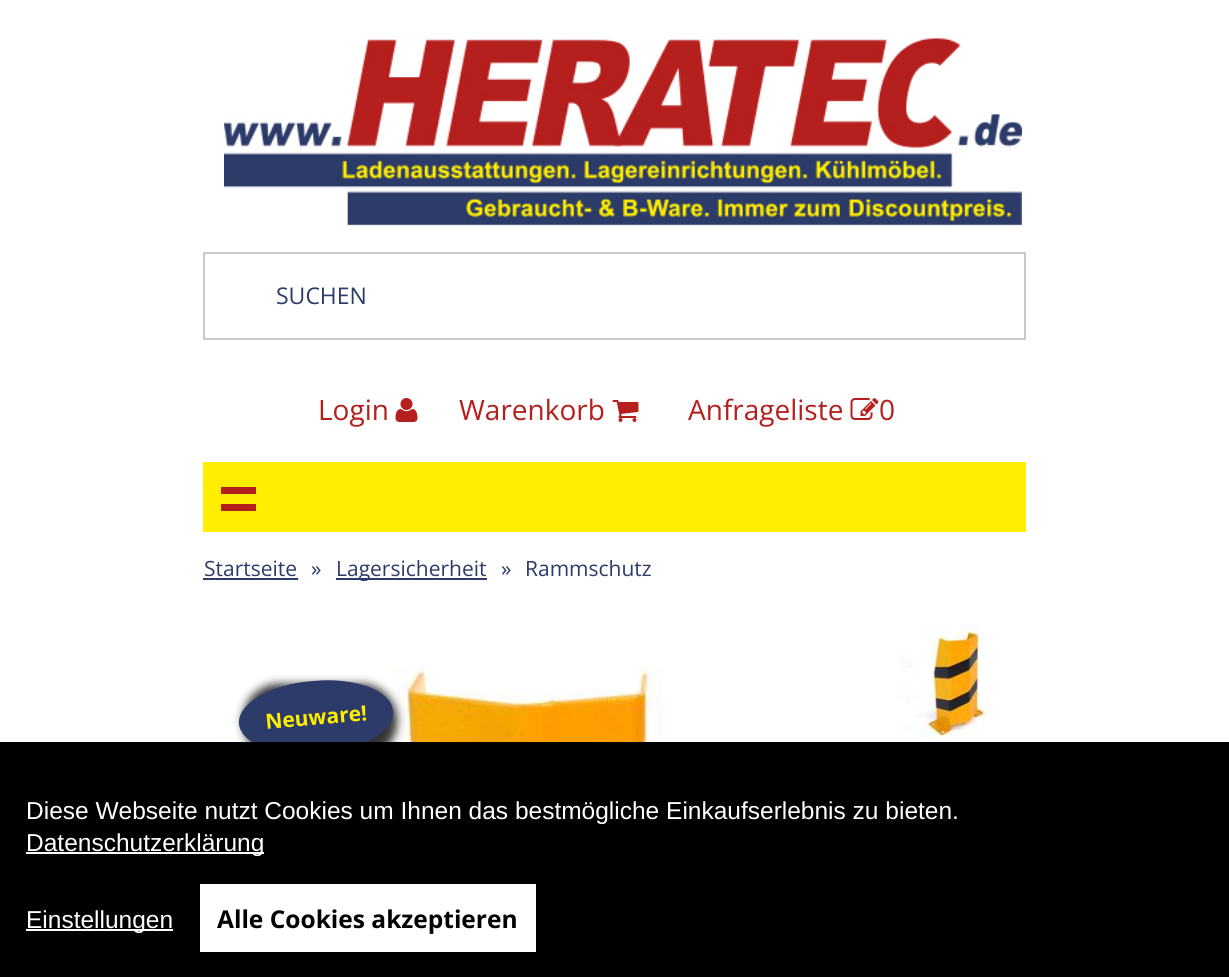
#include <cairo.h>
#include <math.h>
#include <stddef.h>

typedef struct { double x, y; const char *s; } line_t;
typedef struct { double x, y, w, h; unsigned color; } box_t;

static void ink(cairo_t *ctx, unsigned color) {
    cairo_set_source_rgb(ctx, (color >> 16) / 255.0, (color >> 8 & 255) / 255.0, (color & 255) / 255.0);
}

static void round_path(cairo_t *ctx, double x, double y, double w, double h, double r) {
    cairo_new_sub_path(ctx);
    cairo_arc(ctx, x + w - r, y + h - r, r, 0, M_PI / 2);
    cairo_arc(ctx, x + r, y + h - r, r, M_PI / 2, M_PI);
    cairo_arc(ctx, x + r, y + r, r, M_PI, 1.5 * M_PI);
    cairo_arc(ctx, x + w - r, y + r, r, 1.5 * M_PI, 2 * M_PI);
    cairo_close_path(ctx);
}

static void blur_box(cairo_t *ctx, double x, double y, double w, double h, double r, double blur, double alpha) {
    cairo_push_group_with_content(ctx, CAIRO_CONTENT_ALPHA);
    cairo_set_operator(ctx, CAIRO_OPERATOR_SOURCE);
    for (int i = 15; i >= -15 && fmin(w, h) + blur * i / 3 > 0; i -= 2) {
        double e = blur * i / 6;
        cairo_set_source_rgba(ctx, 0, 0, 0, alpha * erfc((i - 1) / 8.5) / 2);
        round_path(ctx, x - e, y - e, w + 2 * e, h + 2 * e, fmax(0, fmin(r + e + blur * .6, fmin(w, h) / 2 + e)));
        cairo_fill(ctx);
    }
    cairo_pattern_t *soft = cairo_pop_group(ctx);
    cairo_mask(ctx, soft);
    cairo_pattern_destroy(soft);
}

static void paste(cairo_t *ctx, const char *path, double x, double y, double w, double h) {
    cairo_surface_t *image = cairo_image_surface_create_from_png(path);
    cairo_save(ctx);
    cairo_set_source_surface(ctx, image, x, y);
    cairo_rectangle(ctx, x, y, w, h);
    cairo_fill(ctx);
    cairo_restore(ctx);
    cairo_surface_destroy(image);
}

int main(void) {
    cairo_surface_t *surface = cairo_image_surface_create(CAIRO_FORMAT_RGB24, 1229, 977);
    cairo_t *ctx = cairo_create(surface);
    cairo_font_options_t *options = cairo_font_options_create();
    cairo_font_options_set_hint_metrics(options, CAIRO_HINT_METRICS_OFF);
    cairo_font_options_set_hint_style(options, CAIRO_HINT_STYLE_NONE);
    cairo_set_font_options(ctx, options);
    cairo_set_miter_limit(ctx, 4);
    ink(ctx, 0xFFFFFF);
    cairo_paint(ctx);
    paste(ctx, "media/1.png", 224, 38, 798, 188);
    cairo_rectangle(ctx, 204, 253, 821, 86);
    ink(ctx, 0xC9C9C9);
    cairo_stroke(ctx);
    cairo_select_font_face(ctx, "Open Sans", CAIRO_FONT_SLANT_NORMAL, CAIRO_FONT_WEIGHT_NORMAL);
    cairo_set_font_size(ctx, 23);
    ink(ctx, 0x2C3B69);
    cairo_move_to(ctx, 276, 304);
    cairo_show_text(ctx, "SUCHEN");
    cairo_set_font_size(ctx, 28);
    ink(ctx, 0xB51F1D);
    cairo_move_to(ctx, 318, 420);
    cairo_show_text(ctx, "Login");
    paste(ctx, "media/2.png", 395, 398, 23, 24);
    cairo_move_to(ctx, 459, 420);
    cairo_show_text(ctx, "Warenkorb");
    paste(ctx, "media/3.png", 612, 400, 27, 22);
    cairo_move_to(ctx, 688, 420);
    cairo_show_text(ctx, "Anfrageliste");
    paste(ctx, "media/4.png", 850, 398, 29, 22);
    cairo_move_to(ctx, 879, 420);
    cairo_show_text(ctx, "0");
    {
        static const box_t items[] = {
            {203, 462, 823, 70, 0xFFEE00},
            {221, 487, 35, 7, 0xB51F1D},
            {221, 504, 35, 7, 0xB51F1D},
        };
        for (size_t i = 0; i < sizeof items / sizeof *items; i++) {
            ink(ctx, items[i].color);
            cairo_rectangle(ctx, items[i].x, items[i].y, items[i].w, items[i].h);
            cairo_fill(ctx);
        }
    }
    cairo_set_font_size(ctx, 21);
    ink(ctx, 0x2C3B69);
    cairo_move_to(ctx, 204, 576);
    cairo_show_text(ctx, "Startseite");
    cairo_rectangle(ctx, 203, 578, 95, 2);
    cairo_fill(ctx);
    cairo_move_to(ctx, 311, 576);
    cairo_show_text(ctx, "»");
    cairo_rectangle(ctx, 336, 578, 151, 2);
    cairo_fill(ctx);
    {
        static const line_t items[] = {
            {336, 576, "Lagersicherheit"},
            {501, 576, "»"},
            {525, 576, "Rammschutz"},
        };
        for (size_t i = 0; i < sizeof items / sizeof *items; i++) {
            cairo_move_to(ctx, items[i].x, items[i].y);
            cairo_show_text(ctx, items[i].s);
        }
    }
    paste(ctx, "media/5.png", 211, 667, 585, 75);
    paste(ctx, "media/6.png", 900, 624, 94, 118);
    ink(ctx, 0x333333);
    blur_box(ctx, 243, 684, 154, 74, 37, 4.5, 1);
    ink(ctx, 0x2C3B69);
    cairo_new_path(ctx);
    cairo_move_to(ctx, 313, 681);
    cairo_curve_to(ctx, 355, 677, 391, 690, 393, 711);
    cairo_curve_to(ctx, 395, 731, 362, 750, 319, 754);
    cairo_curve_to(ctx, 277, 758, 241, 744, 239, 724);
    cairo_curve_to(ctx, 237, 704, 270, 684, 313, 681);
    cairo_close_path(ctx);
    cairo_fill(ctx);
    cairo_select_font_face(ctx, "Open Sans", CAIRO_FONT_SLANT_NORMAL, CAIRO_FONT_WEIGHT_BOLD);
    ink(ctx, 0xFFEE00);
    cairo_save(ctx);
    cairo_translate(ctx, 266, 729);
    cairo_rotate(ctx, -5 * M_PI / 180);
    cairo_move_to(ctx, 0, 0);
    cairo_show_text(ctx, "Neuware!");
    cairo_restore(ctx);
    ink(ctx, 0x000000);
    cairo_rectangle(ctx, 0, 742, 1229, 235);
    cairo_fill(ctx);
    cairo_select_font_face(ctx, "Liberation Sans", CAIRO_FONT_SLANT_NORMAL, CAIRO_FONT_WEIGHT_NORMAL);
    cairo_set_font_size(ctx, 24.5);
    ink(ctx, 0xFFFFFF);
    cairo_move_to(ctx, 26, 819);
    cairo_show_text(ctx, "Diese Webseite nutzt Cookies um Ihnen das bestmögliche Einkaufserlebnis zu bieten.");
    cairo_rectangle(ctx, 26, 852, 238, 2);
    cairo_fill(ctx);
    cairo_move_to(ctx, 26, 851);
    cairo_show_text(ctx, "Datenschutzerklärung");
    cairo_rectangle(ctx, 26, 929, 147, 2);
    cairo_fill(ctx);
    cairo_move_to(ctx, 26, 928);
    cairo_show_text(ctx, "Einstellungen");
    cairo_rectangle(ctx, 200, 884, 336, 68);
    cairo_fill(ctx);
    cairo_select_font_face(ctx, "Open Sans", CAIRO_FONT_SLANT_NORMAL, CAIRO_FONT_WEIGHT_BOLD);
    ink(ctx, 0x000000);
    cairo_move_to(ctx, 217, 928);
    cairo_show_text(ctx, "Alle Cookies akzeptieren");
    cairo_surface_write_to_png(surface, "image.png");
    cairo_font_options_destroy(options);
    cairo_destroy(ctx);
    cairo_surface_destroy(surface);
    return 0;
}
